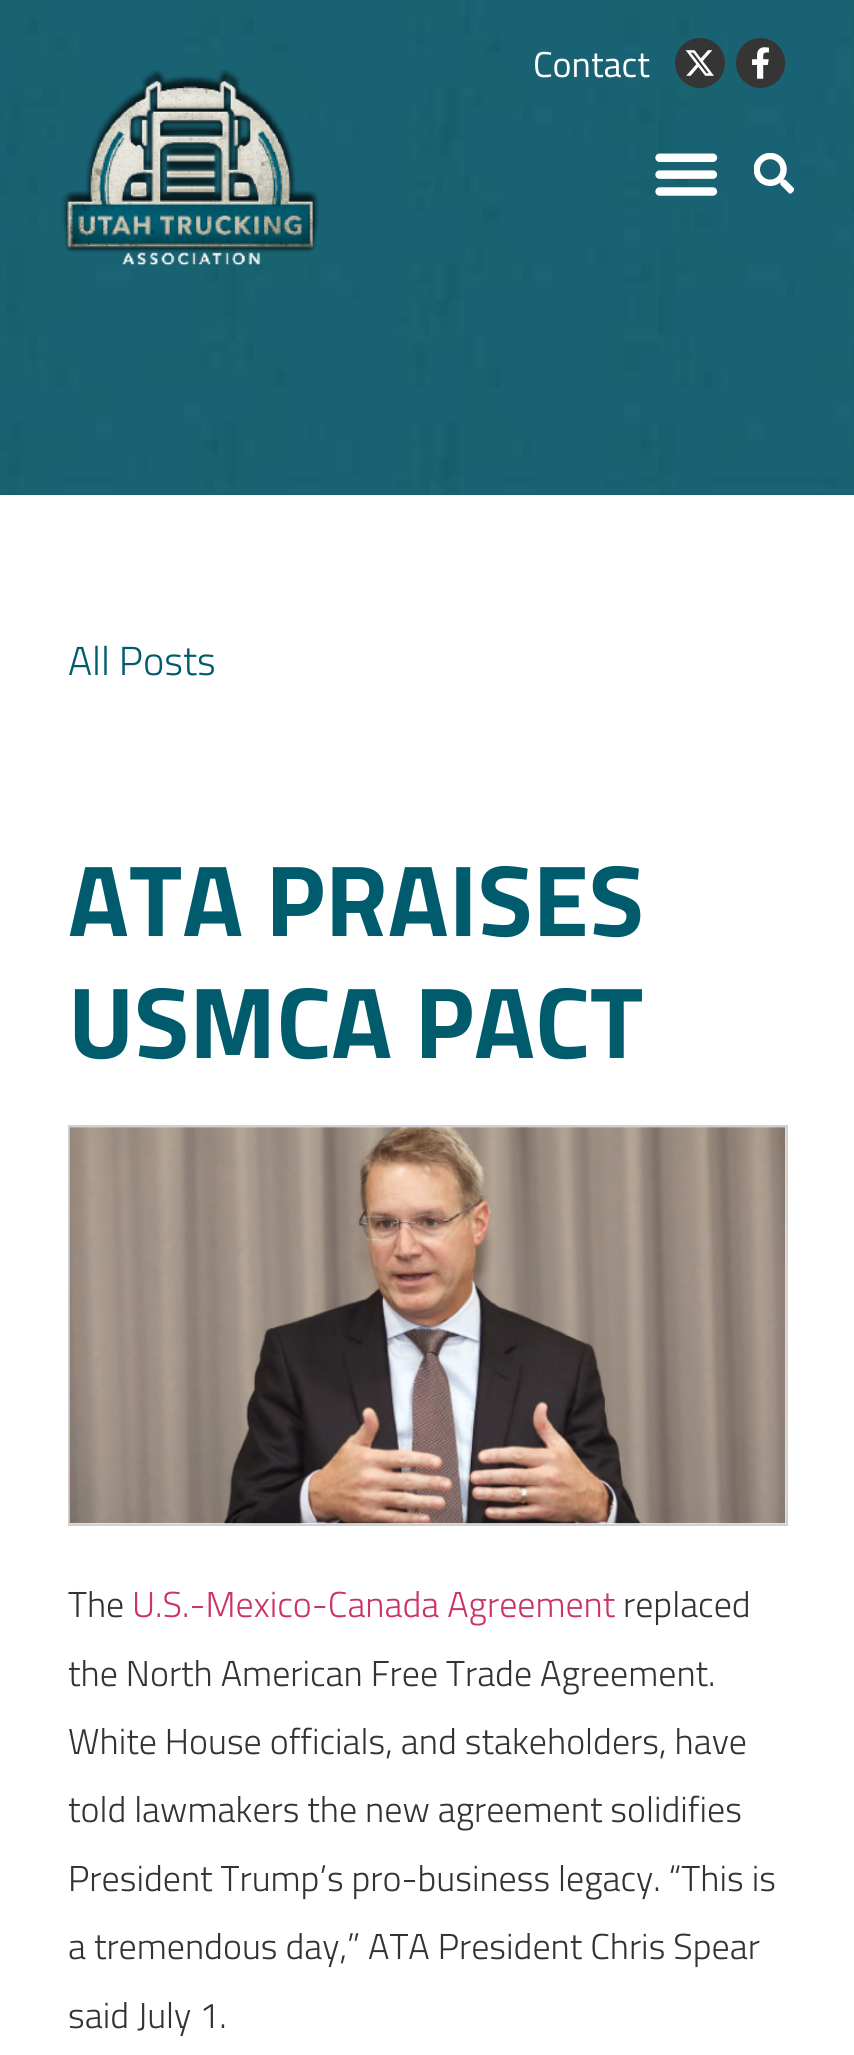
#include <cairo.h>
#include <math.h>
#include <stddef.h>

typedef struct { double x, y; const char *s; } line_t;

static void ink(cairo_t *ctx, unsigned color) {
    cairo_set_source_rgb(ctx, (color >> 16) / 255.0, (color >> 8 & 255) / 255.0, (color & 255) / 255.0);
}

static void round_path(cairo_t *ctx, double x, double y, double w, double h, double r) {
    cairo_new_sub_path(ctx);
    cairo_arc(ctx, x + w - r, y + h - r, r, 0, M_PI / 2);
    cairo_arc(ctx, x + r, y + h - r, r, M_PI / 2, M_PI);
    cairo_arc(ctx, x + r, y + r, r, M_PI, 1.5 * M_PI);
    cairo_arc(ctx, x + w - r, y + r, r, 1.5 * M_PI, 2 * M_PI);
    cairo_close_path(ctx);
}

static void paste(cairo_t *ctx, const char *path, double x, double y, double w, double h) {
    cairo_surface_t *image = cairo_image_surface_create_from_png(path);
    cairo_save(ctx);
    cairo_set_source_surface(ctx, image, x, y);
    cairo_rectangle(ctx, x, y, w, h);
    cairo_fill(ctx);
    cairo_restore(ctx);
    cairo_surface_destroy(image);
}

int main(void) {
    cairo_surface_t *surface = cairo_image_surface_create(CAIRO_FORMAT_RGB24, 854, 2055);
    cairo_t *ctx = cairo_create(surface);
    cairo_font_options_t *options = cairo_font_options_create();
    cairo_font_options_set_hint_metrics(options, CAIRO_HINT_METRICS_OFF);
    cairo_font_options_set_hint_style(options, CAIRO_HINT_STYLE_NONE);
    cairo_set_font_options(ctx, options);
    cairo_set_miter_limit(ctx, 4);
    ink(ctx, 0xFFFFFF);
    cairo_paint(ctx);
    paste(ctx, "media/6.png", 0, 0, 854, 495);
    cairo_select_font_face(ctx, "Titillium Web", CAIRO_FONT_SLANT_NORMAL, CAIRO_FONT_WEIGHT_NORMAL);
    cairo_set_font_size(ctx, 36);
    ink(ctx, 0xFFFFFF);
    cairo_move_to(ctx, 533, 77);
    cairo_show_text(ctx, "Contact");
    ink(ctx, 0x353535);
    cairo_new_path(ctx);
    cairo_arc(ctx, 700, 63, 25, 0, 2 * M_PI);
    cairo_fill(ctx);
    paste(ctx, "media/1.png", 685, 50, 29, 26);
    round_path(ctx, 736, 38, 49, 50, 24.5);
    cairo_fill(ctx);
    paste(ctx, "media/2.png", 752, 47, 17, 32);
    paste(ctx, "media/3.png", 62, 70, 257, 196);
    paste(ctx, "media/4.png", 655, 153, 63, 43);
    paste(ctx, "media/5.png", 754, 153, 40, 41);
    cairo_select_font_face(ctx, "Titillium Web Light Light", CAIRO_FONT_SLANT_NORMAL, CAIRO_FONT_WEIGHT_NORMAL);
    cairo_set_font_size(ctx, 40.5);
    ink(ctx, 0x005B6D);
    cairo_move_to(ctx, 68, 675);
    cairo_show_text(ctx, "All Posts");
    cairo_select_font_face(ctx, "Titillium Web", CAIRO_FONT_SLANT_NORMAL, CAIRO_FONT_WEIGHT_BOLD);
    cairo_set_font_size(ctx, 101.25);
    cairo_move_to(ctx, 68, 936);
    cairo_show_text(ctx, "ATA PRAISES");
    cairo_move_to(ctx, 68, 1058);
    cairo_show_text(ctx, "USMCA PACT");
    cairo_rectangle(ctx, 69, 1126, 718, 399);
    ink(ctx, 0xD1D1D1);
    cairo_stroke(ctx);
    paste(ctx, "media/7.png", 69, 1127, 717, 397);
    cairo_select_font_face(ctx, "Titillium Web Light Light", CAIRO_FONT_SLANT_NORMAL, CAIRO_FONT_WEIGHT_NORMAL);
    cairo_set_font_size(ctx, 36);
    ink(ctx, 0x333333);
    cairo_move_to(ctx, 68, 1617);
    cairo_show_text(ctx, "The");
    ink(ctx, 0xCC3366);
    cairo_move_to(ctx, 132, 1617);
    cairo_show_text(ctx, "U.S.-Mexico-Canada Agreement");
    ink(ctx, 0x333333);
    {
        static const line_t items[] = {
            {623, 1617, "replaced"},
            {68, 1686, "the North American Free Trade Agreement."},
            {68, 1754, "White House officials, and stakeholders, have"},
            {68, 1822, "told lawmakers the new agreement solidifies"},
            {68, 1891, "President Trump’s pro-business legacy. “This is"},
            {68, 1959, "a tremendous day,” ATA President Chris Spear"},
            {68, 2028, "said July 1."},
        };
        for (size_t i = 0; i < sizeof items / sizeof *items; i++) {
            cairo_move_to(ctx, items[i].x, items[i].y);
            cairo_show_text(ctx, items[i].s);
        }
    }
    cairo_surface_write_to_png(surface, "image.png");
    cairo_font_options_destroy(options);
    cairo_destroy(ctx);
    cairo_surface_destroy(surface);
    return 0;
}
